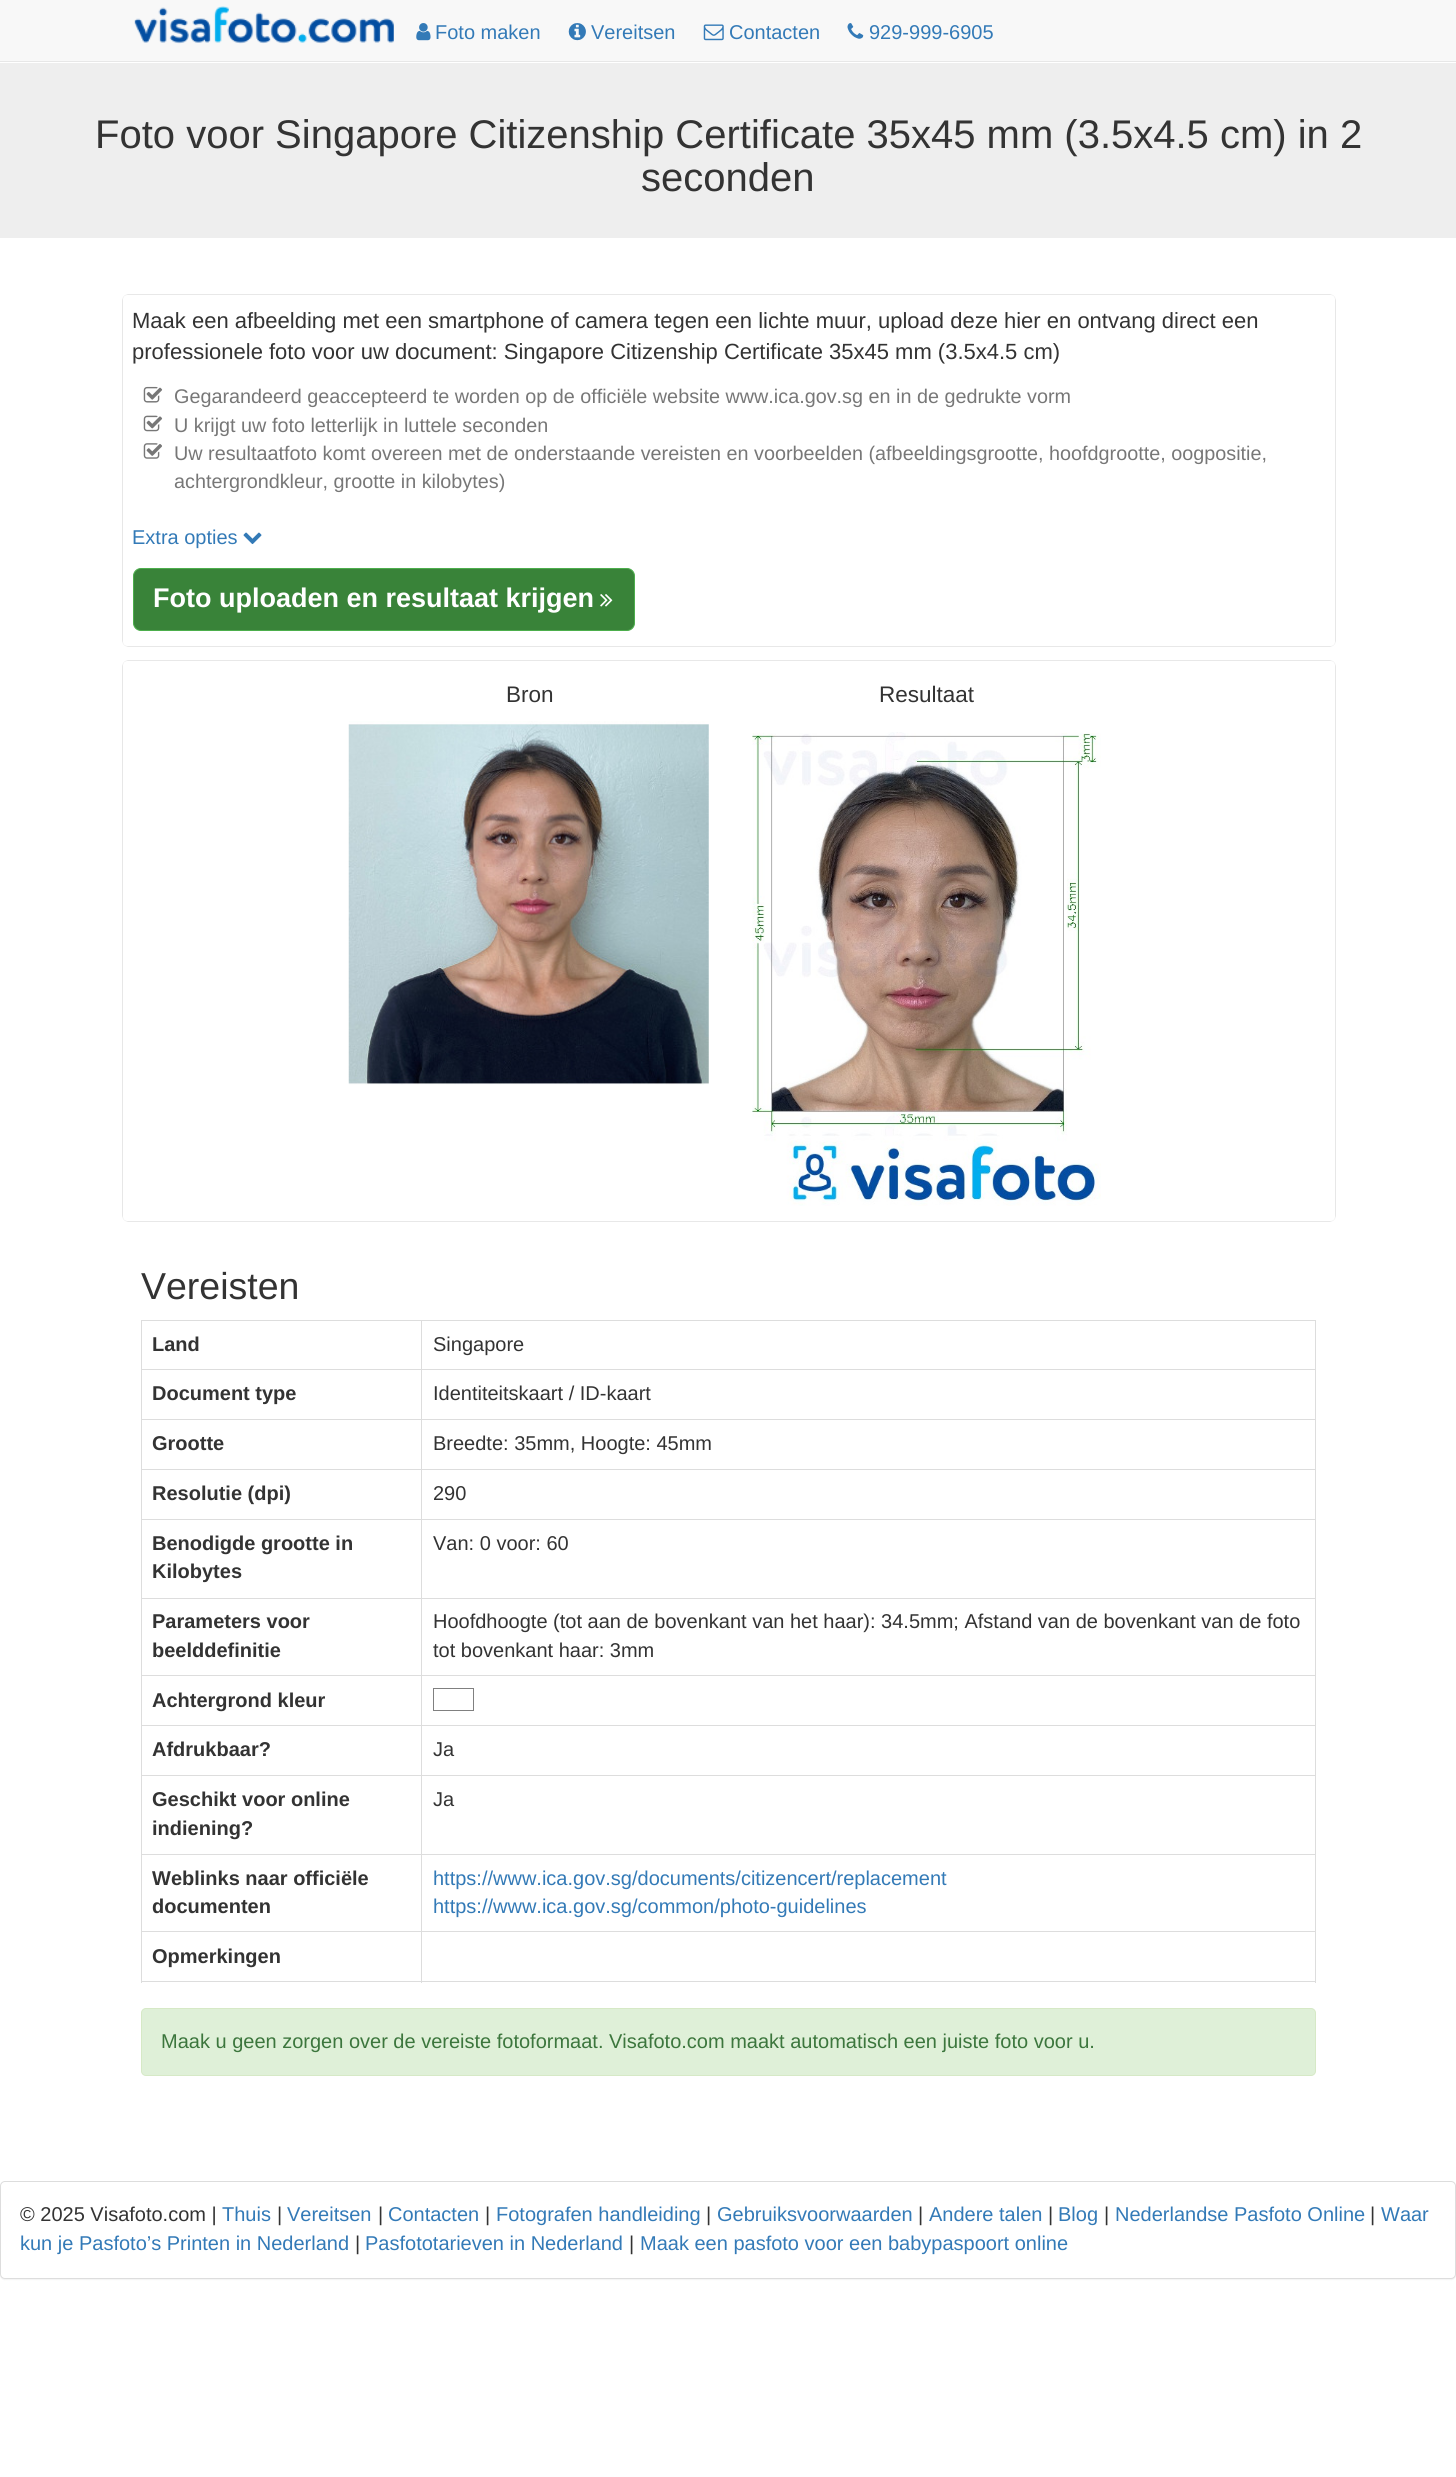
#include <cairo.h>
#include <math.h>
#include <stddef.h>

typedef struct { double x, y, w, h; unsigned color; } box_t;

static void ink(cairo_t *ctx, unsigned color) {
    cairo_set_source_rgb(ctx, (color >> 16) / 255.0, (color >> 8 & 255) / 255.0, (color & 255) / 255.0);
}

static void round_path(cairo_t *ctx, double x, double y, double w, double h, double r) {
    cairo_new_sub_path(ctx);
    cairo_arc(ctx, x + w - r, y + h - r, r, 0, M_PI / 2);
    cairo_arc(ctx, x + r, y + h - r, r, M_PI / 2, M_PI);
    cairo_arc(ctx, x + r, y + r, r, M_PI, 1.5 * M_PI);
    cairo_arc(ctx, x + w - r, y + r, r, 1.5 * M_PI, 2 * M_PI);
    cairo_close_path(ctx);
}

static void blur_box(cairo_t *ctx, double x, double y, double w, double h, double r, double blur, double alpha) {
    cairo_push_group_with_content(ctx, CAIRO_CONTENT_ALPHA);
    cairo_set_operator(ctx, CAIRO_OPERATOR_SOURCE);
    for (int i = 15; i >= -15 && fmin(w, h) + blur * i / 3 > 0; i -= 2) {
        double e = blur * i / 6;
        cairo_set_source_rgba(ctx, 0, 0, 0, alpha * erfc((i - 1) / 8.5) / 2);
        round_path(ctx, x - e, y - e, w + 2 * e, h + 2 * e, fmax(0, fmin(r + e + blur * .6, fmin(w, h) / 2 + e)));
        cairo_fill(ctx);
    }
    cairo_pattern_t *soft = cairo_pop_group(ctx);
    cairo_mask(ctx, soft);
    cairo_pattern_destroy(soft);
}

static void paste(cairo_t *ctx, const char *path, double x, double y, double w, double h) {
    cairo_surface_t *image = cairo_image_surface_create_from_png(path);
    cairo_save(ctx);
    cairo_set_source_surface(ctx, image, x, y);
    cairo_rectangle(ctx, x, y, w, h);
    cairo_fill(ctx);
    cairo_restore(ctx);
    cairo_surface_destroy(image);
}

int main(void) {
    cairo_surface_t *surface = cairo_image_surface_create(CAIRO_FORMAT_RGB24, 1456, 2477);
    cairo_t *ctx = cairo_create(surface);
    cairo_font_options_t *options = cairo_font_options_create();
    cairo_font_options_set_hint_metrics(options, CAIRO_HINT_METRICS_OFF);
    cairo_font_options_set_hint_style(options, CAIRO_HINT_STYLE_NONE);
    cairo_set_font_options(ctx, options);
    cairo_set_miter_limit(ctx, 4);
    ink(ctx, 0xFFFFFF);
    cairo_paint(ctx);
    ink(ctx, 0xF8F8F8);
    cairo_rectangle(ctx, 0, 0, 1456, 61);
    cairo_fill(ctx);
    ink(ctx, 0xE7E7E7);
    cairo_rectangle(ctx, 0, 61, 1456, 1);
    cairo_fill(ctx);
    paste(ctx, "media/1.png", 134, 6, 260, 38);
    paste(ctx, "media/2.png", 416, 23, 15, 18);
    cairo_select_font_face(ctx, "Liberation Sans", CAIRO_FONT_SLANT_NORMAL, CAIRO_FONT_WEIGHT_NORMAL);
    cairo_set_font_size(ctx, 20);
    ink(ctx, 0x337AB7);
    cairo_move_to(ctx, 435, 39);
    cairo_show_text(ctx, "Foto maken");
    paste(ctx, "media/3.png", 568, 23, 18, 18);
    cairo_move_to(ctx, 591, 39);
    cairo_show_text(ctx, "Vereitsen");
    paste(ctx, "media/4.png", 703, 24, 21, 17);
    cairo_move_to(ctx, 729, 39);
    cairo_show_text(ctx, "Contacten");
    paste(ctx, "media/5.png", 847, 23, 17, 16);
    cairo_move_to(ctx, 869, 39);
    cairo_show_text(ctx, "929-999-6905");
    ink(ctx, 0xEEEEEE);
    cairo_rectangle(ctx, 0, 63, 1456, 175);
    cairo_fill(ctx);
    cairo_set_font_size(ctx, 40);
    ink(ctx, 0x333333);
    cairo_move_to(ctx, 95, 148);
    cairo_show_text(ctx, "Foto voor Singapore Citizenship Certificate 35x45 mm (3.5x4.5 cm) in 2");
    cairo_move_to(ctx, 641, 191);
    cairo_show_text(ctx, "seconden");
    cairo_save(ctx);
    cairo_set_fill_rule(ctx, CAIRO_FILL_RULE_EVEN_ODD);
    cairo_new_path(ctx);
    cairo_move_to(ctx, 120, 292);
    cairo_line_to(ctx, 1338, 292);
    cairo_line_to(ctx, 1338, 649);
    cairo_line_to(ctx, 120, 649);
    cairo_close_path(ctx);
    cairo_move_to(ctx, 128, 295);
    cairo_line_to(ctx, 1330, 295);
    cairo_curve_to(ctx, 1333, 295, 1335, 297, 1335, 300);
    cairo_line_to(ctx, 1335, 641);
    cairo_curve_to(ctx, 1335, 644, 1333, 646, 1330, 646);
    cairo_line_to(ctx, 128, 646);
    cairo_curve_to(ctx, 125, 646, 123, 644, 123, 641);
    cairo_line_to(ctx, 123, 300);
    cairo_curve_to(ctx, 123, 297, 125, 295, 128, 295);
    cairo_close_path(ctx);
    cairo_clip(ctx);
    ink(ctx, 0xA0A0A0);
    blur_box(ctx, 123, 295, 1212, 351, 5, 0.5, 1);
    cairo_restore(ctx);
    cairo_set_font_size(ctx, 22);
    cairo_move_to(ctx, 132, 328);
    cairo_show_text(ctx, "Maak een afbeelding met een smartphone of camera tegen een lichte muur, upload deze hier en ontvang direct een");
    cairo_move_to(ctx, 132, 359);
    cairo_show_text(ctx, "professionele foto voor uw document: Singapore Citizenship Certificate 35x45 mm (3.5x4.5 cm)");
    paste(ctx, "media/6.png", 143, 386, 20, 17);
    cairo_set_font_size(ctx, 19.8);
    ink(ctx, 0x777777);
    cairo_move_to(ctx, 174, 403);
    cairo_show_text(ctx, "Gegarandeerd geaccepteerd te worden op de officiële website www.ica.gov.sg en in de gedrukte vorm");
    paste(ctx, "media/7.png", 143, 415, 20, 17);
    cairo_move_to(ctx, 174, 432);
    cairo_show_text(ctx, "U krijgt uw foto letterlijk in luttele seconden");
    paste(ctx, "media/8.png", 143, 443, 19, 16);
    cairo_move_to(ctx, 174, 460);
    cairo_show_text(ctx, "Uw resultaatfoto komt overeen met de onderstaande vereisten en voorbeelden (afbeeldingsgrootte, hoofdgrootte, oogpositie,");
    cairo_move_to(ctx, 174, 488);
    cairo_show_text(ctx, "achtergrondkleur, grootte in kilobytes)");
    cairo_set_font_size(ctx, 20);
    ink(ctx, 0x337AB7);
    cairo_move_to(ctx, 132, 544);
    cairo_show_text(ctx, "Extra opties");
    paste(ctx, "media/9.png", 243, 532, 19, 13);
    ink(ctx, 0x398339);
    round_path(ctx, 133.5, 568.5, 501, 62, 7.5);
    cairo_fill_preserve(ctx);
    ink(ctx, 0x4CAE4C);
    cairo_set_line_width(ctx, 1);
    cairo_stroke(ctx);
    cairo_select_font_face(ctx, "Liberation Sans", CAIRO_FONT_SLANT_NORMAL, CAIRO_FONT_WEIGHT_BOLD);
    cairo_set_font_size(ctx, 27);
    ink(ctx, 0xFFFFFF);
    cairo_move_to(ctx, 153, 607);
    cairo_show_text(ctx, "Foto uploaden en resultaat krijgen");
    paste(ctx, "media/10.png", 600, 594, 13, 13);
    cairo_save(ctx);
    cairo_set_fill_rule(ctx, CAIRO_FILL_RULE_EVEN_ODD);
    cairo_new_path(ctx);
    cairo_move_to(ctx, 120, 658);
    cairo_line_to(ctx, 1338, 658);
    cairo_line_to(ctx, 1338, 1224);
    cairo_line_to(ctx, 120, 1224);
    cairo_close_path(ctx);
    cairo_move_to(ctx, 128, 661);
    cairo_line_to(ctx, 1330, 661);
    cairo_curve_to(ctx, 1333, 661, 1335, 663, 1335, 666);
    cairo_line_to(ctx, 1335, 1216);
    cairo_curve_to(ctx, 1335, 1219, 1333, 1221, 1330, 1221);
    cairo_line_to(ctx, 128, 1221);
    cairo_curve_to(ctx, 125, 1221, 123, 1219, 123, 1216);
    cairo_line_to(ctx, 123, 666);
    cairo_curve_to(ctx, 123, 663, 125, 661, 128, 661);
    cairo_close_path(ctx);
    cairo_clip(ctx);
    ink(ctx, 0xA0A0A0);
    blur_box(ctx, 123, 661, 1212, 560, 5, 0.5, 1);
    cairo_restore(ctx);
    cairo_select_font_face(ctx, "Liberation Sans", CAIRO_FONT_SLANT_NORMAL, CAIRO_FONT_WEIGHT_NORMAL);
    cairo_set_font_size(ctx, 22.5);
    ink(ctx, 0x333333);
    cairo_move_to(ctx, 506, 702);
    cairo_show_text(ctx, "Bron");
    paste(ctx, "media/11.png", 348, 721, 361, 364);
    cairo_move_to(ctx, 879, 702);
    cairo_show_text(ctx, "Resultaat");
    paste(ctx, "media/12.png", 752, 732, 349, 474);
    cairo_set_font_size(ctx, 37.5);
    cairo_move_to(ctx, 141, 1299);
    cairo_show_text(ctx, "Vereisten");
    {
        static const box_t items[] = {
            {141, 1320, 1175, 1, 0xDDDDDD},
            {1315, 1320, 1, 663, 0xDDDDDD},
            {141, 1981, 1175, 1, 0xDDDDDD},
            {141, 1320, 1, 663, 0xDDDDDD},
        };
        for (size_t i = 0; i < sizeof items / sizeof *items; i++) {
            ink(ctx, items[i].color);
            cairo_rectangle(ctx, items[i].x, items[i].y, items[i].w, items[i].h);
            cairo_fill(ctx);
        }
    }
    cairo_select_font_face(ctx, "Liberation Sans", CAIRO_FONT_SLANT_NORMAL, CAIRO_FONT_WEIGHT_BOLD);
    cairo_set_font_size(ctx, 20);
    ink(ctx, 0x333333);
    cairo_move_to(ctx, 152, 1351);
    cairo_show_text(ctx, "Land");
    {
        static const box_t items[] = {
            {421, 1369, 895, 1, 0xDDDDDD},
            {421, 1419, 895, 1, 0xDDDDDD},
            {421, 1469, 895, 1, 0xDDDDDD},
            {421, 1519, 895, 1, 0xDDDDDD},
            {421, 1598, 895, 1, 0xDDDDDD},
            {421, 1675, 895, 1, 0xDDDDDD},
            {421, 1725, 895, 1, 0xDDDDDD},
            {421, 1775, 895, 1, 0xDDDDDD},
            {421, 1854, 895, 1, 0xDDDDDD},
            {421, 1931, 895, 1, 0xDDDDDD},
            {421, 1931, 1, 52, 0xDDDDDD},
            {141, 1931, 282, 1, 0xDDDDDD},
            {421, 1854, 1, 79, 0xDDDDDD},
            {141, 1854, 282, 1, 0xDDDDDD},
            {421, 1775, 1, 80, 0xDDDDDD},
            {141, 1775, 282, 1, 0xDDDDDD},
            {421, 1725, 1, 51, 0xDDDDDD},
            {141, 1725, 282, 1, 0xDDDDDD},
            {421, 1675, 1, 51, 0xDDDDDD},
            {141, 1675, 282, 1, 0xDDDDDD},
            {421, 1598, 1, 78, 0xDDDDDD},
            {141, 1598, 282, 1, 0xDDDDDD},
            {421, 1519, 1, 80, 0xDDDDDD},
            {141, 1519, 282, 1, 0xDDDDDD},
            {421, 1469, 1, 51, 0xDDDDDD},
            {141, 1469, 282, 1, 0xDDDDDD},
            {421, 1419, 1, 51, 0xDDDDDD},
            {141, 1419, 282, 1, 0xDDDDDD},
            {421, 1369, 1, 51, 0xDDDDDD},
            {141, 1369, 282, 1, 0xDDDDDD},
            {421, 1320, 1, 50, 0xDDDDDD},
        };
        for (size_t i = 0; i < sizeof items / sizeof *items; i++) {
            ink(ctx, items[i].color);
            cairo_rectangle(ctx, items[i].x, items[i].y, items[i].w, items[i].h);
            cairo_fill(ctx);
        }
    }
    cairo_select_font_face(ctx, "Liberation Sans", CAIRO_FONT_SLANT_NORMAL, CAIRO_FONT_WEIGHT_NORMAL);
    ink(ctx, 0x333333);
    cairo_move_to(ctx, 433, 1351);
    cairo_show_text(ctx, "Singapore");
    cairo_select_font_face(ctx, "Liberation Sans", CAIRO_FONT_SLANT_NORMAL, CAIRO_FONT_WEIGHT_BOLD);
    cairo_move_to(ctx, 152, 1400);
    cairo_show_text(ctx, "Document type");
    cairo_select_font_face(ctx, "Liberation Sans", CAIRO_FONT_SLANT_NORMAL, CAIRO_FONT_WEIGHT_NORMAL);
    cairo_move_to(ctx, 433, 1400);
    cairo_show_text(ctx, "Identiteitskaart / ID-kaart");
    cairo_select_font_face(ctx, "Liberation Sans", CAIRO_FONT_SLANT_NORMAL, CAIRO_FONT_WEIGHT_BOLD);
    cairo_move_to(ctx, 152, 1450);
    cairo_show_text(ctx, "Grootte");
    cairo_select_font_face(ctx, "Liberation Sans", CAIRO_FONT_SLANT_NORMAL, CAIRO_FONT_WEIGHT_NORMAL);
    cairo_move_to(ctx, 433, 1450);
    cairo_show_text(ctx, "Breedte: 35mm, Hoogte: 45mm");
    cairo_select_font_face(ctx, "Liberation Sans", CAIRO_FONT_SLANT_NORMAL, CAIRO_FONT_WEIGHT_BOLD);
    cairo_move_to(ctx, 152, 1500);
    cairo_show_text(ctx, "Resolutie (dpi)");
    cairo_select_font_face(ctx, "Liberation Sans", CAIRO_FONT_SLANT_NORMAL, CAIRO_FONT_WEIGHT_NORMAL);
    cairo_move_to(ctx, 433, 1500);
    cairo_show_text(ctx, "290");
    cairo_select_font_face(ctx, "Liberation Sans", CAIRO_FONT_SLANT_NORMAL, CAIRO_FONT_WEIGHT_BOLD);
    cairo_move_to(ctx, 152, 1550);
    cairo_show_text(ctx, "Benodigde grootte in");
    cairo_move_to(ctx, 152, 1578);
    cairo_show_text(ctx, "Kilobytes");
    cairo_select_font_face(ctx, "Liberation Sans", CAIRO_FONT_SLANT_NORMAL, CAIRO_FONT_WEIGHT_NORMAL);
    cairo_move_to(ctx, 433, 1550);
    cairo_show_text(ctx, "Van: 0 voor: 60");
    cairo_select_font_face(ctx, "Liberation Sans", CAIRO_FONT_SLANT_NORMAL, CAIRO_FONT_WEIGHT_BOLD);
    cairo_move_to(ctx, 152, 1628);
    cairo_show_text(ctx, "Parameters voor");
    cairo_move_to(ctx, 152, 1657);
    cairo_show_text(ctx, "beelddefinitie");
    cairo_select_font_face(ctx, "Liberation Sans", CAIRO_FONT_SLANT_NORMAL, CAIRO_FONT_WEIGHT_NORMAL);
    cairo_move_to(ctx, 433, 1628);
    cairo_show_text(ctx, "Hoofdhoogte (tot aan de bovenkant van het haar): 34.5mm; Afstand van de bovenkant van de foto");
    cairo_move_to(ctx, 433, 1657);
    cairo_show_text(ctx, "tot bovenkant haar: 3mm");
    cairo_select_font_face(ctx, "Liberation Sans", CAIRO_FONT_SLANT_NORMAL, CAIRO_FONT_WEIGHT_BOLD);
    cairo_move_to(ctx, 152, 1707);
    cairo_show_text(ctx, "Achtergrond kleur");
    cairo_rectangle(ctx, 433.5, 1688.5, 40, 22);
    ink(ctx, 0x808080);
    cairo_stroke(ctx);
    ink(ctx, 0x333333);
    cairo_move_to(ctx, 152, 1756);
    cairo_show_text(ctx, "Afdrukbaar?");
    cairo_select_font_face(ctx, "Liberation Sans", CAIRO_FONT_SLANT_NORMAL, CAIRO_FONT_WEIGHT_NORMAL);
    cairo_move_to(ctx, 433, 1756);
    cairo_show_text(ctx, "Ja");
    cairo_select_font_face(ctx, "Liberation Sans", CAIRO_FONT_SLANT_NORMAL, CAIRO_FONT_WEIGHT_BOLD);
    cairo_move_to(ctx, 152, 1806);
    cairo_show_text(ctx, "Geschikt voor online");
    cairo_move_to(ctx, 152, 1835);
    cairo_show_text(ctx, "indiening?");
    cairo_select_font_face(ctx, "Liberation Sans", CAIRO_FONT_SLANT_NORMAL, CAIRO_FONT_WEIGHT_NORMAL);
    cairo_move_to(ctx, 433, 1806);
    cairo_show_text(ctx, "Ja");
    cairo_select_font_face(ctx, "Liberation Sans", CAIRO_FONT_SLANT_NORMAL, CAIRO_FONT_WEIGHT_BOLD);
    cairo_move_to(ctx, 152, 1885);
    cairo_show_text(ctx, "Weblinks naar officiële");
    cairo_move_to(ctx, 152, 1913);
    cairo_show_text(ctx, "documenten");
    cairo_select_font_face(ctx, "Liberation Sans", CAIRO_FONT_SLANT_NORMAL, CAIRO_FONT_WEIGHT_NORMAL);
    ink(ctx, 0x337AB7);
    cairo_move_to(ctx, 433, 1885);
    cairo_show_text(ctx, "https://www.ica.gov.sg/documents/citizencert/replacement");
    cairo_move_to(ctx, 433, 1913);
    cairo_show_text(ctx, "https://www.ica.gov.sg/common/photo-guidelines");
    cairo_select_font_face(ctx, "Liberation Sans", CAIRO_FONT_SLANT_NORMAL, CAIRO_FONT_WEIGHT_BOLD);
    ink(ctx, 0x333333);
    cairo_move_to(ctx, 152, 1963);
    cairo_show_text(ctx, "Opmerkingen");
    ink(ctx, 0xDFF0D8);
    round_path(ctx, 141.5, 2008.5, 1174, 67, 4.5);
    cairo_fill_preserve(ctx);
    ink(ctx, 0xD6E9C6);
    cairo_stroke(ctx);
    cairo_select_font_face(ctx, "Liberation Sans", CAIRO_FONT_SLANT_NORMAL, CAIRO_FONT_WEIGHT_NORMAL);
    ink(ctx, 0x3C763D);
    cairo_move_to(ctx, 161, 2048);
    cairo_show_text(ctx, "Maak u geen zorgen over de vereiste fotoformaat. Visafoto.com maakt automatisch een juiste foto voor u.");
    ink(ctx, 0x000000);
    blur_box(ctx, 0, 2183, 1456, 97, 5, 0.5, 0.05);
    ink(ctx, 0xFFFFFF);
    round_path(ctx, 0.5, 2181.5, 1455, 97, 4.5);
    cairo_fill_preserve(ctx);
    ink(ctx, 0xDDDDDD);
    cairo_stroke(ctx);
    ink(ctx, 0x333333);
    cairo_move_to(ctx, 20, 2221);
    cairo_show_text(ctx, "© 2025 Visafoto.com |");
    ink(ctx, 0x337AB7);
    cairo_move_to(ctx, 222, 2221);
    cairo_show_text(ctx, "Thuis");
    ink(ctx, 0x333333);
    cairo_move_to(ctx, 277, 2221);
    cairo_show_text(ctx, "|");
    ink(ctx, 0x337AB7);
    cairo_move_to(ctx, 287, 2221);
    cairo_show_text(ctx, "Vereitsen");
    ink(ctx, 0x333333);
    cairo_move_to(ctx, 378, 2221);
    cairo_show_text(ctx, "|");
    ink(ctx, 0x337AB7);
    cairo_move_to(ctx, 388, 2221);
    cairo_show_text(ctx, "Contacten");
    ink(ctx, 0x333333);
    cairo_move_to(ctx, 485, 2221);
    cairo_show_text(ctx, "|");
    ink(ctx, 0x337AB7);
    cairo_move_to(ctx, 496, 2221);
    cairo_show_text(ctx, "Fotografen handleiding");
    ink(ctx, 0x333333);
    cairo_move_to(ctx, 706, 2221);
    cairo_show_text(ctx, "|");
    ink(ctx, 0x337AB7);
    cairo_move_to(ctx, 717, 2221);
    cairo_show_text(ctx, "Gebruiksvoorwaarden");
    ink(ctx, 0x333333);
    cairo_move_to(ctx, 918, 2221);
    cairo_show_text(ctx, "|");
    ink(ctx, 0x337AB7);
    cairo_move_to(ctx, 929, 2221);
    cairo_show_text(ctx, "Andere talen");
    ink(ctx, 0x333333);
    cairo_move_to(ctx, 1048, 2221);
    cairo_show_text(ctx, "|");
    ink(ctx, 0x337AB7);
    cairo_move_to(ctx, 1058, 2221);
    cairo_show_text(ctx, "Blog");
    ink(ctx, 0x333333);
    cairo_move_to(ctx, 1104, 2221);
    cairo_show_text(ctx, "|");
    ink(ctx, 0x337AB7);
    cairo_move_to(ctx, 1115, 2221);
    cairo_show_text(ctx, "Nederlandse Pasfoto Online");
    ink(ctx, 0x333333);
    cairo_move_to(ctx, 1370, 2221);
    cairo_show_text(ctx, "|");
    ink(ctx, 0x337AB7);
    cairo_move_to(ctx, 1381, 2221);
    cairo_show_text(ctx, "Waar");
    cairo_move_to(ctx, 20, 2250);
    cairo_show_text(ctx, "kun je Pasfoto’s Printen in Nederland");
    ink(ctx, 0x333333);
    cairo_move_to(ctx, 355, 2250);
    cairo_show_text(ctx, "|");
    ink(ctx, 0x337AB7);
    cairo_move_to(ctx, 365, 2250);
    cairo_show_text(ctx, "Pasfototarieven in Nederland");
    ink(ctx, 0x333333);
    cairo_move_to(ctx, 629, 2250);
    cairo_show_text(ctx, "|");
    ink(ctx, 0x337AB7);
    cairo_move_to(ctx, 640, 2250);
    cairo_show_text(ctx, "Maak een pasfoto voor een babypaspoort online");
    cairo_surface_write_to_png(surface, "image.png");
    cairo_font_options_destroy(options);
    cairo_destroy(ctx);
    cairo_surface_destroy(surface);
    return 0;
}
